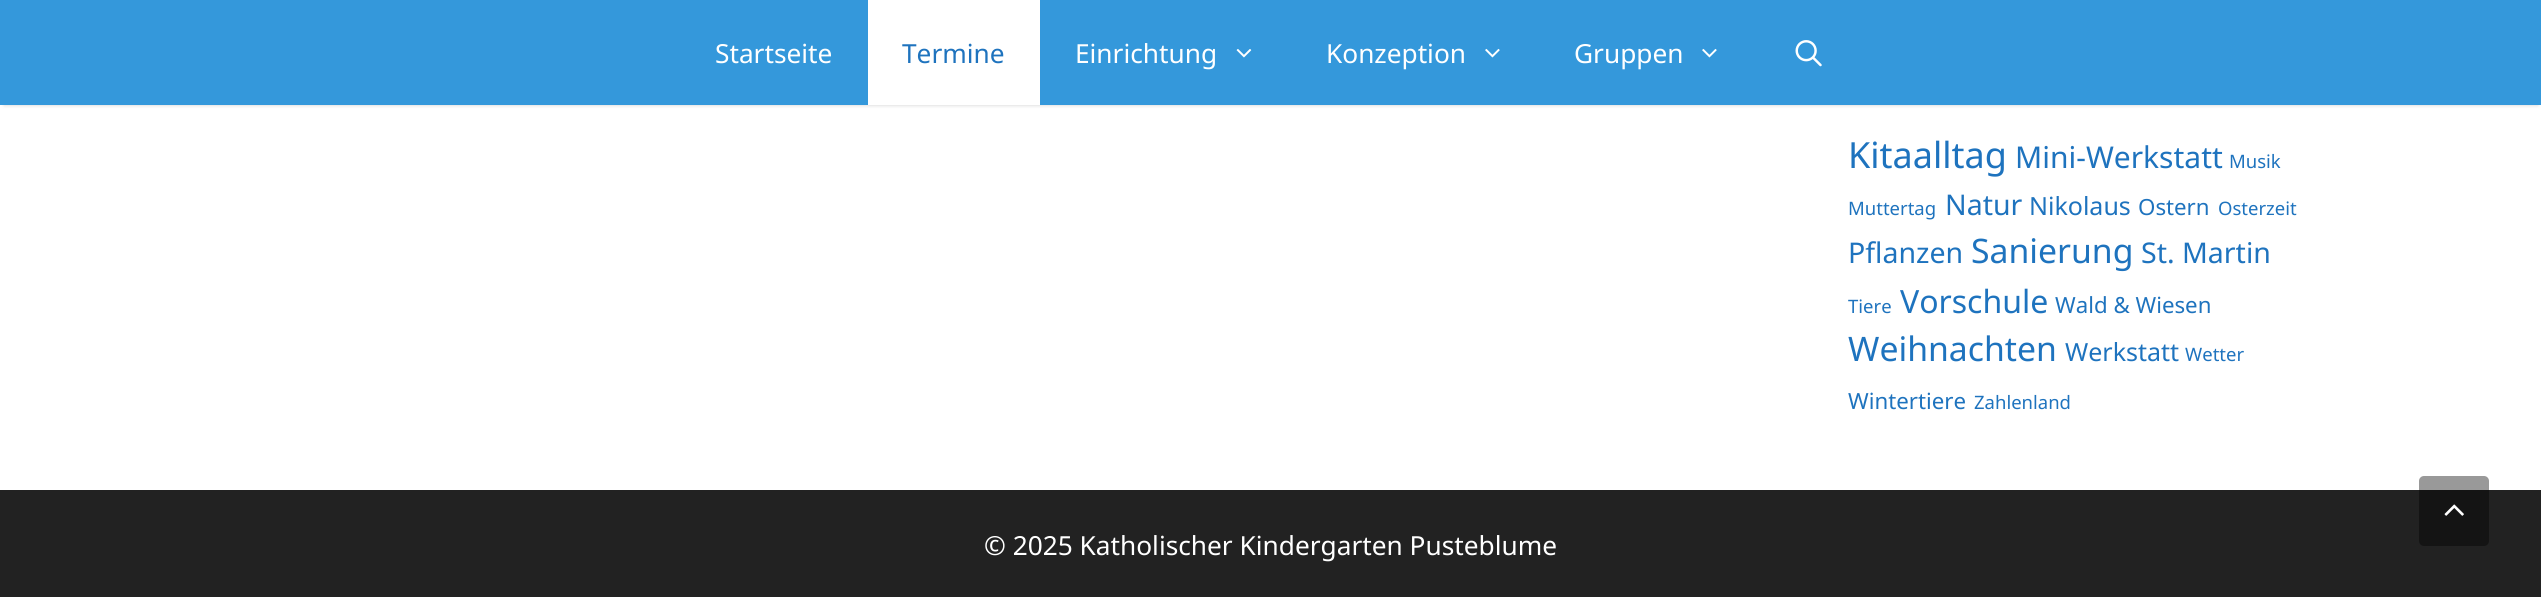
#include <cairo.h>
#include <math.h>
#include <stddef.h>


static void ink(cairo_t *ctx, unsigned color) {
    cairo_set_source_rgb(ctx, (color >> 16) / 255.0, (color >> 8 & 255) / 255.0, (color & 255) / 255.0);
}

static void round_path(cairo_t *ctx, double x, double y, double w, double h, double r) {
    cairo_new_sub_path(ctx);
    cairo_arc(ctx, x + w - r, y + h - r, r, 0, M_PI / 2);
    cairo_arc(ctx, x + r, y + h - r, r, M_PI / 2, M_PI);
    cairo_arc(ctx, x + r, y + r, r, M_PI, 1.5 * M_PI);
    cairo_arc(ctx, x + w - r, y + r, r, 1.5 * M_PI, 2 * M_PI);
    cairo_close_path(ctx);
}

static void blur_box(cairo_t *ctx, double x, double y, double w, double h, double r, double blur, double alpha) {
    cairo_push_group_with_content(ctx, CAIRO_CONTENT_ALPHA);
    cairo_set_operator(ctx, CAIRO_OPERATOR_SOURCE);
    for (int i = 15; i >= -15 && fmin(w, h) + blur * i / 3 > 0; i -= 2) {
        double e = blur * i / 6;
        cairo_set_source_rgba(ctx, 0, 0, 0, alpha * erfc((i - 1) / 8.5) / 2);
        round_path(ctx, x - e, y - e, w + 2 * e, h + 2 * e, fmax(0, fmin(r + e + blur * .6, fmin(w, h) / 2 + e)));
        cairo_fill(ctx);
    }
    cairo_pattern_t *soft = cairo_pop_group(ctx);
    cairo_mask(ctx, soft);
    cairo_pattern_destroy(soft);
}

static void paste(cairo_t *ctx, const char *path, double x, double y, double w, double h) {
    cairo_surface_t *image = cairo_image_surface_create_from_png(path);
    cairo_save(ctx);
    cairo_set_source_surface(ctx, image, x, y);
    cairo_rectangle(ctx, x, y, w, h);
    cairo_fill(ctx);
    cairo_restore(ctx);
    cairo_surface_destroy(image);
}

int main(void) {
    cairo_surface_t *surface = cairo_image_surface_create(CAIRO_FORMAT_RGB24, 2541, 597);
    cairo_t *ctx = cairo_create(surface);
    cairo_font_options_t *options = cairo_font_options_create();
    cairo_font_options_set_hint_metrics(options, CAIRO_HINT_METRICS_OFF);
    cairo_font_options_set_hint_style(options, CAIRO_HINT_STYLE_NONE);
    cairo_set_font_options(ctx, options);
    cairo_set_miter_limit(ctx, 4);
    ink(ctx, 0xFFFFFF);
    cairo_paint(ctx);
    ink(ctx, 0x000000);
    blur_box(ctx, 4, 7, 2534, 98, 0, 2, 0.2);
    ink(ctx, 0x3498DB);
    cairo_rectangle(ctx, 0, 0, 2541, 105);
    cairo_fill(ctx);
    cairo_select_font_face(ctx, "Noto Sans", CAIRO_FONT_SLANT_NORMAL, CAIRO_FONT_WEIGHT_NORMAL);
    cairo_set_font_size(ctx, 26.25);
    ink(ctx, 0xFFFFFF);
    cairo_move_to(ctx, 715, 63);
    cairo_show_text(ctx, "Startseite");
    cairo_rectangle(ctx, 868, 0, 172, 105);
    cairo_fill(ctx);
    ink(ctx, 0x1E73BE);
    cairo_move_to(ctx, 902, 63);
    cairo_show_text(ctx, "Termine");
    ink(ctx, 0xFFFFFF);
    cairo_move_to(ctx, 1075, 63);
    cairo_show_text(ctx, "Einrichtung");
    paste(ctx, "media/1.png", 1236, 49, 16, 9);
    cairo_move_to(ctx, 1326, 63);
    cairo_show_text(ctx, "Konzeption");
    paste(ctx, "media/2.png", 1485, 48, 15, 10);
    cairo_move_to(ctx, 1574, 63);
    cairo_show_text(ctx, "Gruppen");
    paste(ctx, "media/2.png", 1702, 48, 15, 10);
    paste(ctx, "media/3.png", 1795, 40, 27, 27);
    cairo_set_font_size(ctx, 36);
    ink(ctx, 0x1E73BE);
    cairo_move_to(ctx, 1848, 168);
    cairo_show_text(ctx, "Kitaalltag");
    cairo_set_font_size(ctx, 30);
    cairo_move_to(ctx, 2015, 168);
    cairo_show_text(ctx, "Mini-Werkstatt");
    cairo_set_font_size(ctx, 18.5);
    cairo_move_to(ctx, 2229, 168);
    cairo_show_text(ctx, "Musik");
    cairo_move_to(ctx, 1848, 215);
    cairo_show_text(ctx, "Muttertag");
    cairo_set_font_size(ctx, 28.5);
    cairo_move_to(ctx, 1945, 215);
    cairo_show_text(ctx, "Natur");
    cairo_set_font_size(ctx, 25);
    cairo_move_to(ctx, 2029, 215);
    cairo_show_text(ctx, "Nikolaus");
    cairo_set_font_size(ctx, 22.25);
    cairo_move_to(ctx, 2138, 215);
    cairo_show_text(ctx, "Ostern");
    cairo_set_font_size(ctx, 18.5);
    cairo_move_to(ctx, 2218, 215);
    cairo_show_text(ctx, "Osterzeit");
    cairo_set_font_size(ctx, 28.5);
    cairo_move_to(ctx, 1848, 263);
    cairo_show_text(ctx, "Pflanzen");
    cairo_set_font_size(ctx, 33.75);
    cairo_move_to(ctx, 1971, 263);
    cairo_show_text(ctx, "Sanierung");
    cairo_set_font_size(ctx, 28.5);
    cairo_move_to(ctx, 2141, 263);
    cairo_show_text(ctx, "St. Martin");
    cairo_set_font_size(ctx, 18.5);
    cairo_move_to(ctx, 1848, 313);
    cairo_show_text(ctx, "Tiere");
    cairo_set_font_size(ctx, 32);
    cairo_move_to(ctx, 1900, 313);
    cairo_show_text(ctx, "Vorschule");
    cairo_set_font_size(ctx, 22.25);
    cairo_move_to(ctx, 2055, 313);
    cairo_show_text(ctx, "Wald & Wiesen");
    cairo_set_font_size(ctx, 33.75);
    cairo_move_to(ctx, 1848, 361);
    cairo_show_text(ctx, "Weihnachten");
    cairo_set_font_size(ctx, 25);
    cairo_move_to(ctx, 2065, 361);
    cairo_show_text(ctx, "Werkstatt");
    cairo_set_font_size(ctx, 18.5);
    cairo_move_to(ctx, 2185, 361);
    cairo_show_text(ctx, "Wetter");
    cairo_set_font_size(ctx, 22.25);
    cairo_move_to(ctx, 1848, 409);
    cairo_show_text(ctx, "Wintertiere");
    cairo_set_font_size(ctx, 18.5);
    cairo_move_to(ctx, 1974, 409);
    cairo_show_text(ctx, "Zahlenland");
    ink(ctx, 0x222222);
    cairo_rectangle(ctx, 0, 490, 2541, 107);
    cairo_fill(ctx);
    cairo_set_font_size(ctx, 26.25);
    ink(ctx, 0xFFFFFF);
    cairo_move_to(ctx, 984, 555);
    cairo_show_text(ctx, "© 2025 Katholischer Kindergarten Pusteblume");
    cairo_set_source_rgba(ctx, 0, 0, 0, 0.4);
    round_path(ctx, 2419, 476, 70, 70, 5);
    cairo_fill(ctx);
    paste(ctx, "media/4.png", 2444, 504, 20, 12);
    cairo_surface_write_to_png(surface, "image.png");
    cairo_font_options_destroy(options);
    cairo_destroy(ctx);
    cairo_surface_destroy(surface);
    return 0;
}
